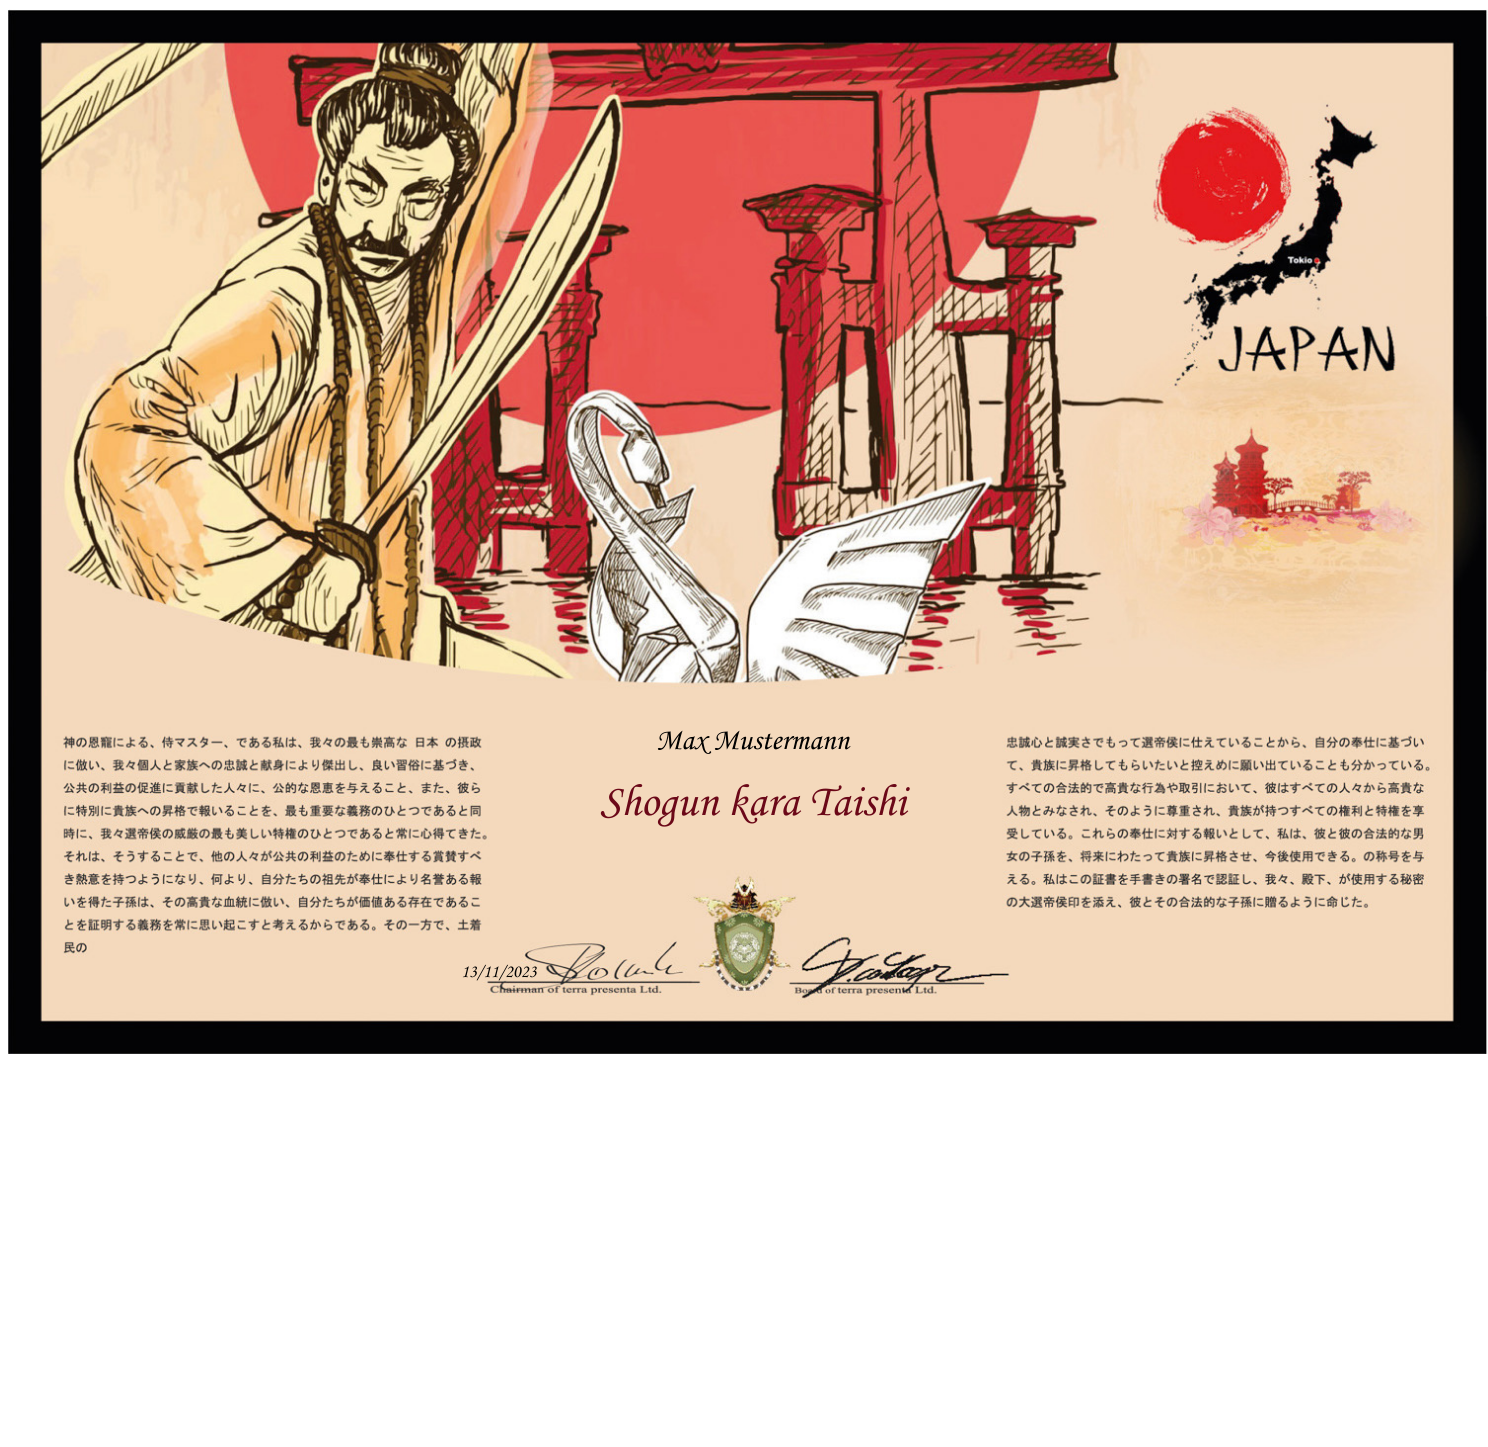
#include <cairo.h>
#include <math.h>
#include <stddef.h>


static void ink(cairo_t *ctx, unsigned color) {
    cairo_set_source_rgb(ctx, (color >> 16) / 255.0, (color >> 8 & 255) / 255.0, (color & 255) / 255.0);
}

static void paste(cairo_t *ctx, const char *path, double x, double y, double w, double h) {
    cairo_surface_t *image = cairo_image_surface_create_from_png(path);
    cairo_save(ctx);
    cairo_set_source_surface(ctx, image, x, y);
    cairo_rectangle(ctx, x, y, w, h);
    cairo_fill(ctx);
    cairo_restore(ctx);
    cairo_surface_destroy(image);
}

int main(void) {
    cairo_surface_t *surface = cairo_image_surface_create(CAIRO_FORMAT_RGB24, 1488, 1447);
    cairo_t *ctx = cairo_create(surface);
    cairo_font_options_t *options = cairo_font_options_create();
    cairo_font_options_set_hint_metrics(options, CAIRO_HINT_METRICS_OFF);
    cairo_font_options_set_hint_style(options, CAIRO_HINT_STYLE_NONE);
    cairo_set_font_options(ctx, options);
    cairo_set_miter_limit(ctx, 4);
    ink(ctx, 0xFFFFFF);
    cairo_paint(ctx);
    paste(ctx, "media/1.png", 8, 9, 1480, 1045);
    cairo_select_font_face(ctx, "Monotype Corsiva", CAIRO_FONT_SLANT_ITALIC, CAIRO_FONT_WEIGHT_NORMAL);
    cairo_set_font_size(ctx, 30);
    ink(ctx, 0x000000);
    cairo_move_to(ctx, 656, 749);
    cairo_show_text(ctx, "Max Mustermann");
    cairo_set_font_size(ctx, 45);
    ink(ctx, 0x6B0818);
    cairo_move_to(ctx, 600, 815);
    cairo_show_text(ctx, "Shogun kara Taishi");
    cairo_set_font_size(ctx, 18);
    ink(ctx, 0x000000);
    cairo_move_to(ctx, 461, 977);
    cairo_show_text(ctx, "13/11/2023");
    cairo_surface_write_to_png(surface, "image.png");
    cairo_font_options_destroy(options);
    cairo_destroy(ctx);
    cairo_surface_destroy(surface);
    return 0;
}
